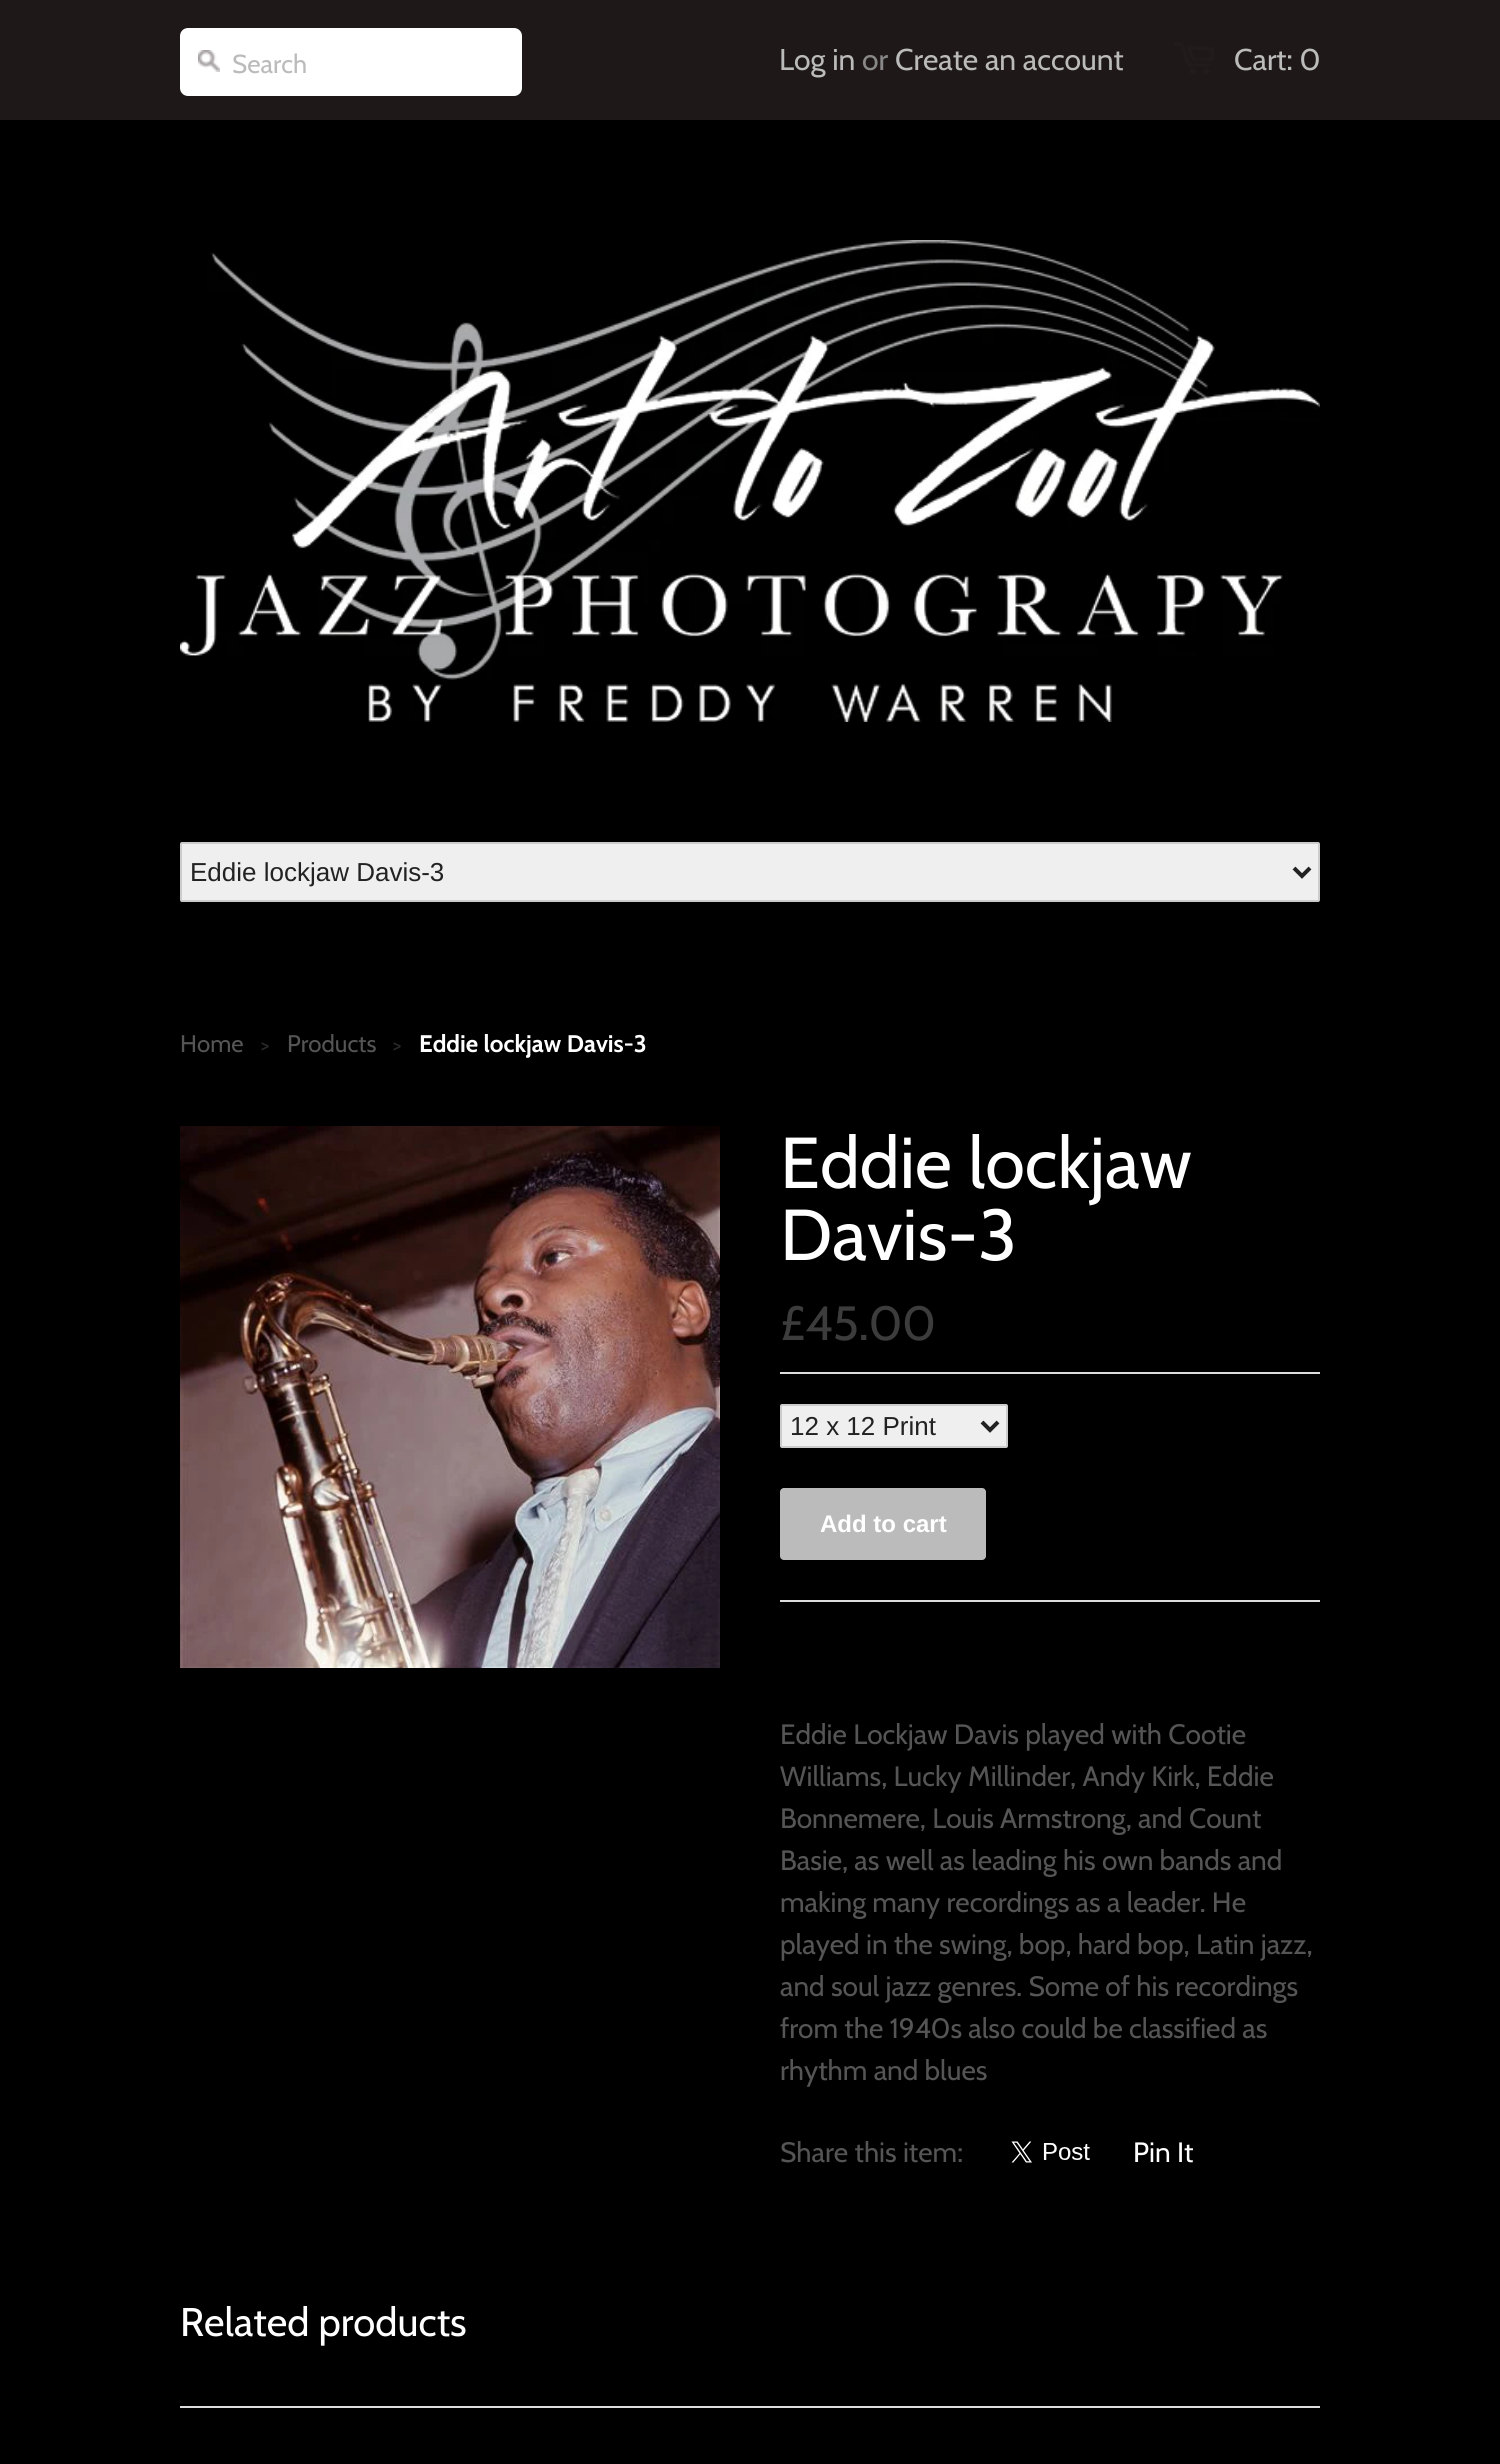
#include <cairo.h>
#include <math.h>
#include <stddef.h>

typedef struct { double x, y; const char *s; } line_t;

static void ink(cairo_t *ctx, unsigned color) {
    cairo_set_source_rgb(ctx, (color >> 16) / 255.0, (color >> 8 & 255) / 255.0, (color & 255) / 255.0);
}

static void round_path(cairo_t *ctx, double x, double y, double w, double h, double r) {
    cairo_new_sub_path(ctx);
    cairo_arc(ctx, x + w - r, y + h - r, r, 0, M_PI / 2);
    cairo_arc(ctx, x + r, y + h - r, r, M_PI / 2, M_PI);
    cairo_arc(ctx, x + r, y + r, r, M_PI, 1.5 * M_PI);
    cairo_arc(ctx, x + w - r, y + r, r, 1.5 * M_PI, 2 * M_PI);
    cairo_close_path(ctx);
}

static void paste(cairo_t *ctx, const char *path, double x, double y, double w, double h) {
    cairo_surface_t *image = cairo_image_surface_create_from_png(path);
    cairo_save(ctx);
    cairo_set_source_surface(ctx, image, x, y);
    cairo_rectangle(ctx, x, y, w, h);
    cairo_fill(ctx);
    cairo_restore(ctx);
    cairo_surface_destroy(image);
}

int main(void) {
    cairo_surface_t *surface = cairo_image_surface_create(CAIRO_FORMAT_RGB24, 1500, 2464);
    cairo_t *ctx = cairo_create(surface);
    cairo_font_options_t *options = cairo_font_options_create();
    cairo_font_options_set_hint_metrics(options, CAIRO_HINT_METRICS_OFF);
    cairo_font_options_set_hint_style(options, CAIRO_HINT_STYLE_NONE);
    cairo_set_font_options(ctx, options);
    cairo_set_miter_limit(ctx, 4);
    ink(ctx, 0x000000);
    cairo_paint(ctx);
    ink(ctx, 0x1F1818);
    cairo_rectangle(ctx, 0, 0, 1500, 120);
    cairo_fill(ctx);
    ink(ctx, 0xFFFFFF);
    round_path(ctx, 180, 28, 342, 68, 8);
    cairo_fill(ctx);
    paste(ctx, "media/1.png", 198, 50, 22, 22);
    cairo_select_font_face(ctx, "Cabin", CAIRO_FONT_SLANT_NORMAL, CAIRO_FONT_WEIGHT_NORMAL);
    cairo_set_font_size(ctx, 26);
    ink(ctx, 0xBBBBBB);
    cairo_move_to(ctx, 232, 73);
    cairo_show_text(ctx, "Search");
    cairo_set_font_size(ctx, 30);
    cairo_move_to(ctx, 779, 70);
    cairo_show_text(ctx, "Log in");
    ink(ctx, 0x888888);
    cairo_move_to(ctx, 862, 70);
    cairo_show_text(ctx, "or");
    ink(ctx, 0xBBBBBB);
    cairo_move_to(ctx, 895, 70);
    cairo_show_text(ctx, "Create an account");
    paste(ctx, "media/2.png", 1174, 42, 40, 32);
    cairo_move_to(ctx, 1234, 70);
    cairo_show_text(ctx, "Cart: 0");
    paste(ctx, "media/3.png", 180, 240, 1140, 482);
    ink(ctx, 0xEFEFEF);
    round_path(ctx, 181, 843, 1138, 58, 1);
    cairo_fill_preserve(ctx);
    ink(ctx, 0xCCCCCC);
    cairo_stroke(ctx);
    cairo_new_path(ctx);
    cairo_move_to(ctx, 1294, 868);
    cairo_line_to(ctx, 1302, 876);
    cairo_line_to(ctx, 1310, 868);
    ink(ctx, 0x222222);
    cairo_set_line_width(ctx, 4);
    cairo_stroke(ctx);
    cairo_select_font_face(ctx, "Liberation Sans", CAIRO_FONT_SLANT_NORMAL, CAIRO_FONT_WEIGHT_NORMAL);
    cairo_set_font_size(ctx, 26);
    cairo_move_to(ctx, 190, 881);
    cairo_show_text(ctx, "Eddie lockjaw Davis-3");
    cairo_select_font_face(ctx, "Cabin", CAIRO_FONT_SLANT_NORMAL, CAIRO_FONT_WEIGHT_NORMAL);
    cairo_set_font_size(ctx, 24);
    ink(ctx, 0x555555);
    cairo_move_to(ctx, 180, 1052);
    cairo_show_text(ctx, "Home");
    cairo_set_font_size(ctx, 20);
    ink(ctx, 0x2B2B2B);
    cairo_move_to(ctx, 261, 1052);
    cairo_show_text(ctx, ">");
    cairo_set_font_size(ctx, 24);
    ink(ctx, 0x555555);
    cairo_move_to(ctx, 287, 1052);
    cairo_show_text(ctx, "Products");
    cairo_set_font_size(ctx, 20);
    ink(ctx, 0x2B2B2B);
    cairo_move_to(ctx, 393, 1052);
    cairo_show_text(ctx, ">");
    cairo_select_font_face(ctx, "Cabin", CAIRO_FONT_SLANT_NORMAL, CAIRO_FONT_WEIGHT_BOLD);
    cairo_set_font_size(ctx, 24);
    ink(ctx, 0xFFFFFF);
    cairo_move_to(ctx, 419, 1052);
    cairo_show_text(ctx, "Eddie lockjaw Davis-3");
    paste(ctx, "media/4.png", 180, 1126, 540, 542);
    cairo_select_font_face(ctx, "Cabin", CAIRO_FONT_SLANT_NORMAL, CAIRO_FONT_WEIGHT_NORMAL);
    cairo_set_font_size(ctx, 72);
    cairo_move_to(ctx, 780, 1188);
    cairo_show_text(ctx, "Eddie lockjaw");
    cairo_move_to(ctx, 780, 1260);
    cairo_show_text(ctx, "Davis-3");
    cairo_set_font_size(ctx, 48);
    ink(ctx, 0x3C3C3C);
    cairo_move_to(ctx, 780, 1340);
    cairo_show_text(ctx, "£45.00");
    ink(ctx, 0xDDDDDD);
    cairo_rectangle(ctx, 780, 1372, 540, 2);
    cairo_fill(ctx);
    cairo_rectangle(ctx, 780, 1600, 540, 2);
    cairo_fill(ctx);
    ink(ctx, 0xEFEFEF);
    round_path(ctx, 781, 1405, 226, 42, 1);
    cairo_fill_preserve(ctx);
    ink(ctx, 0xCCCCCC);
    cairo_set_line_width(ctx, 2);
    cairo_stroke(ctx);
    cairo_new_path(ctx);
    cairo_move_to(ctx, 982, 1422);
    cairo_line_to(ctx, 990, 1430);
    cairo_line_to(ctx, 998, 1422);
    ink(ctx, 0x222222);
    cairo_set_line_width(ctx, 4);
    cairo_stroke(ctx);
    cairo_select_font_face(ctx, "Liberation Sans", CAIRO_FONT_SLANT_NORMAL, CAIRO_FONT_WEIGHT_NORMAL);
    cairo_set_font_size(ctx, 26);
    cairo_move_to(ctx, 790, 1435);
    cairo_show_text(ctx, "12 x 12 Print");
    ink(ctx, 0xBBBBBB);
    round_path(ctx, 780, 1488, 206, 72, 4);
    cairo_fill(ctx);
    cairo_select_font_face(ctx, "Liberation Sans", CAIRO_FONT_SLANT_NORMAL, CAIRO_FONT_WEIGHT_BOLD);
    cairo_set_font_size(ctx, 24);
    ink(ctx, 0xFFFFFF);
    cairo_move_to(ctx, 820, 1532);
    cairo_show_text(ctx, "Add to cart");
    cairo_select_font_face(ctx, "Cabin", CAIRO_FONT_SLANT_NORMAL, CAIRO_FONT_WEIGHT_NORMAL);
    cairo_set_font_size(ctx, 28);
    ink(ctx, 0x555555);
    {
        static const line_t items[] = {
            {780, 1744, "Eddie Lockjaw Davis played with Cootie"},
            {780, 1786, "Williams, Lucky Millinder, Andy Kirk, Eddie"},
            {780, 1828, "Bonnemere, Louis Armstrong, and Count"},
            {780, 1870, "Basie, as well as leading his own bands and"},
            {780, 1912, "making many recordings as a leader. He"},
            {780, 1954, "played in the swing, bop, hard bop, Latin jazz,"},
            {780, 1996, "and soul jazz genres. Some of his recordings"},
            {780, 2038, "from the 1940s also could be classified as"},
            {780, 2080, "rhythm and blues"},
            {780, 2162, "Share this item:"},
        };
        for (size_t i = 0; i < sizeof items / sizeof *items; i++) {
            cairo_move_to(ctx, items[i].x, items[i].y);
            cairo_show_text(ctx, items[i].s);
        }
    }
    paste(ctx, "media/5.png", 1011, 2141, 79, 22);
    ink(ctx, 0xFFFFFF);
    cairo_move_to(ctx, 1133, 2162);
    cairo_show_text(ctx, "Pin It");
    ink(ctx, 0xDDDDDD);
    cairo_rectangle(ctx, 180, 2406, 1140, 2);
    cairo_fill(ctx);
    cairo_set_font_size(ctx, 40);
    ink(ctx, 0xFFFFFF);
    cairo_move_to(ctx, 180, 2336);
    cairo_show_text(ctx, "Related products");
    cairo_surface_write_to_png(surface, "image.png");
    cairo_font_options_destroy(options);
    cairo_destroy(ctx);
    cairo_surface_destroy(surface);
    return 0;
}
